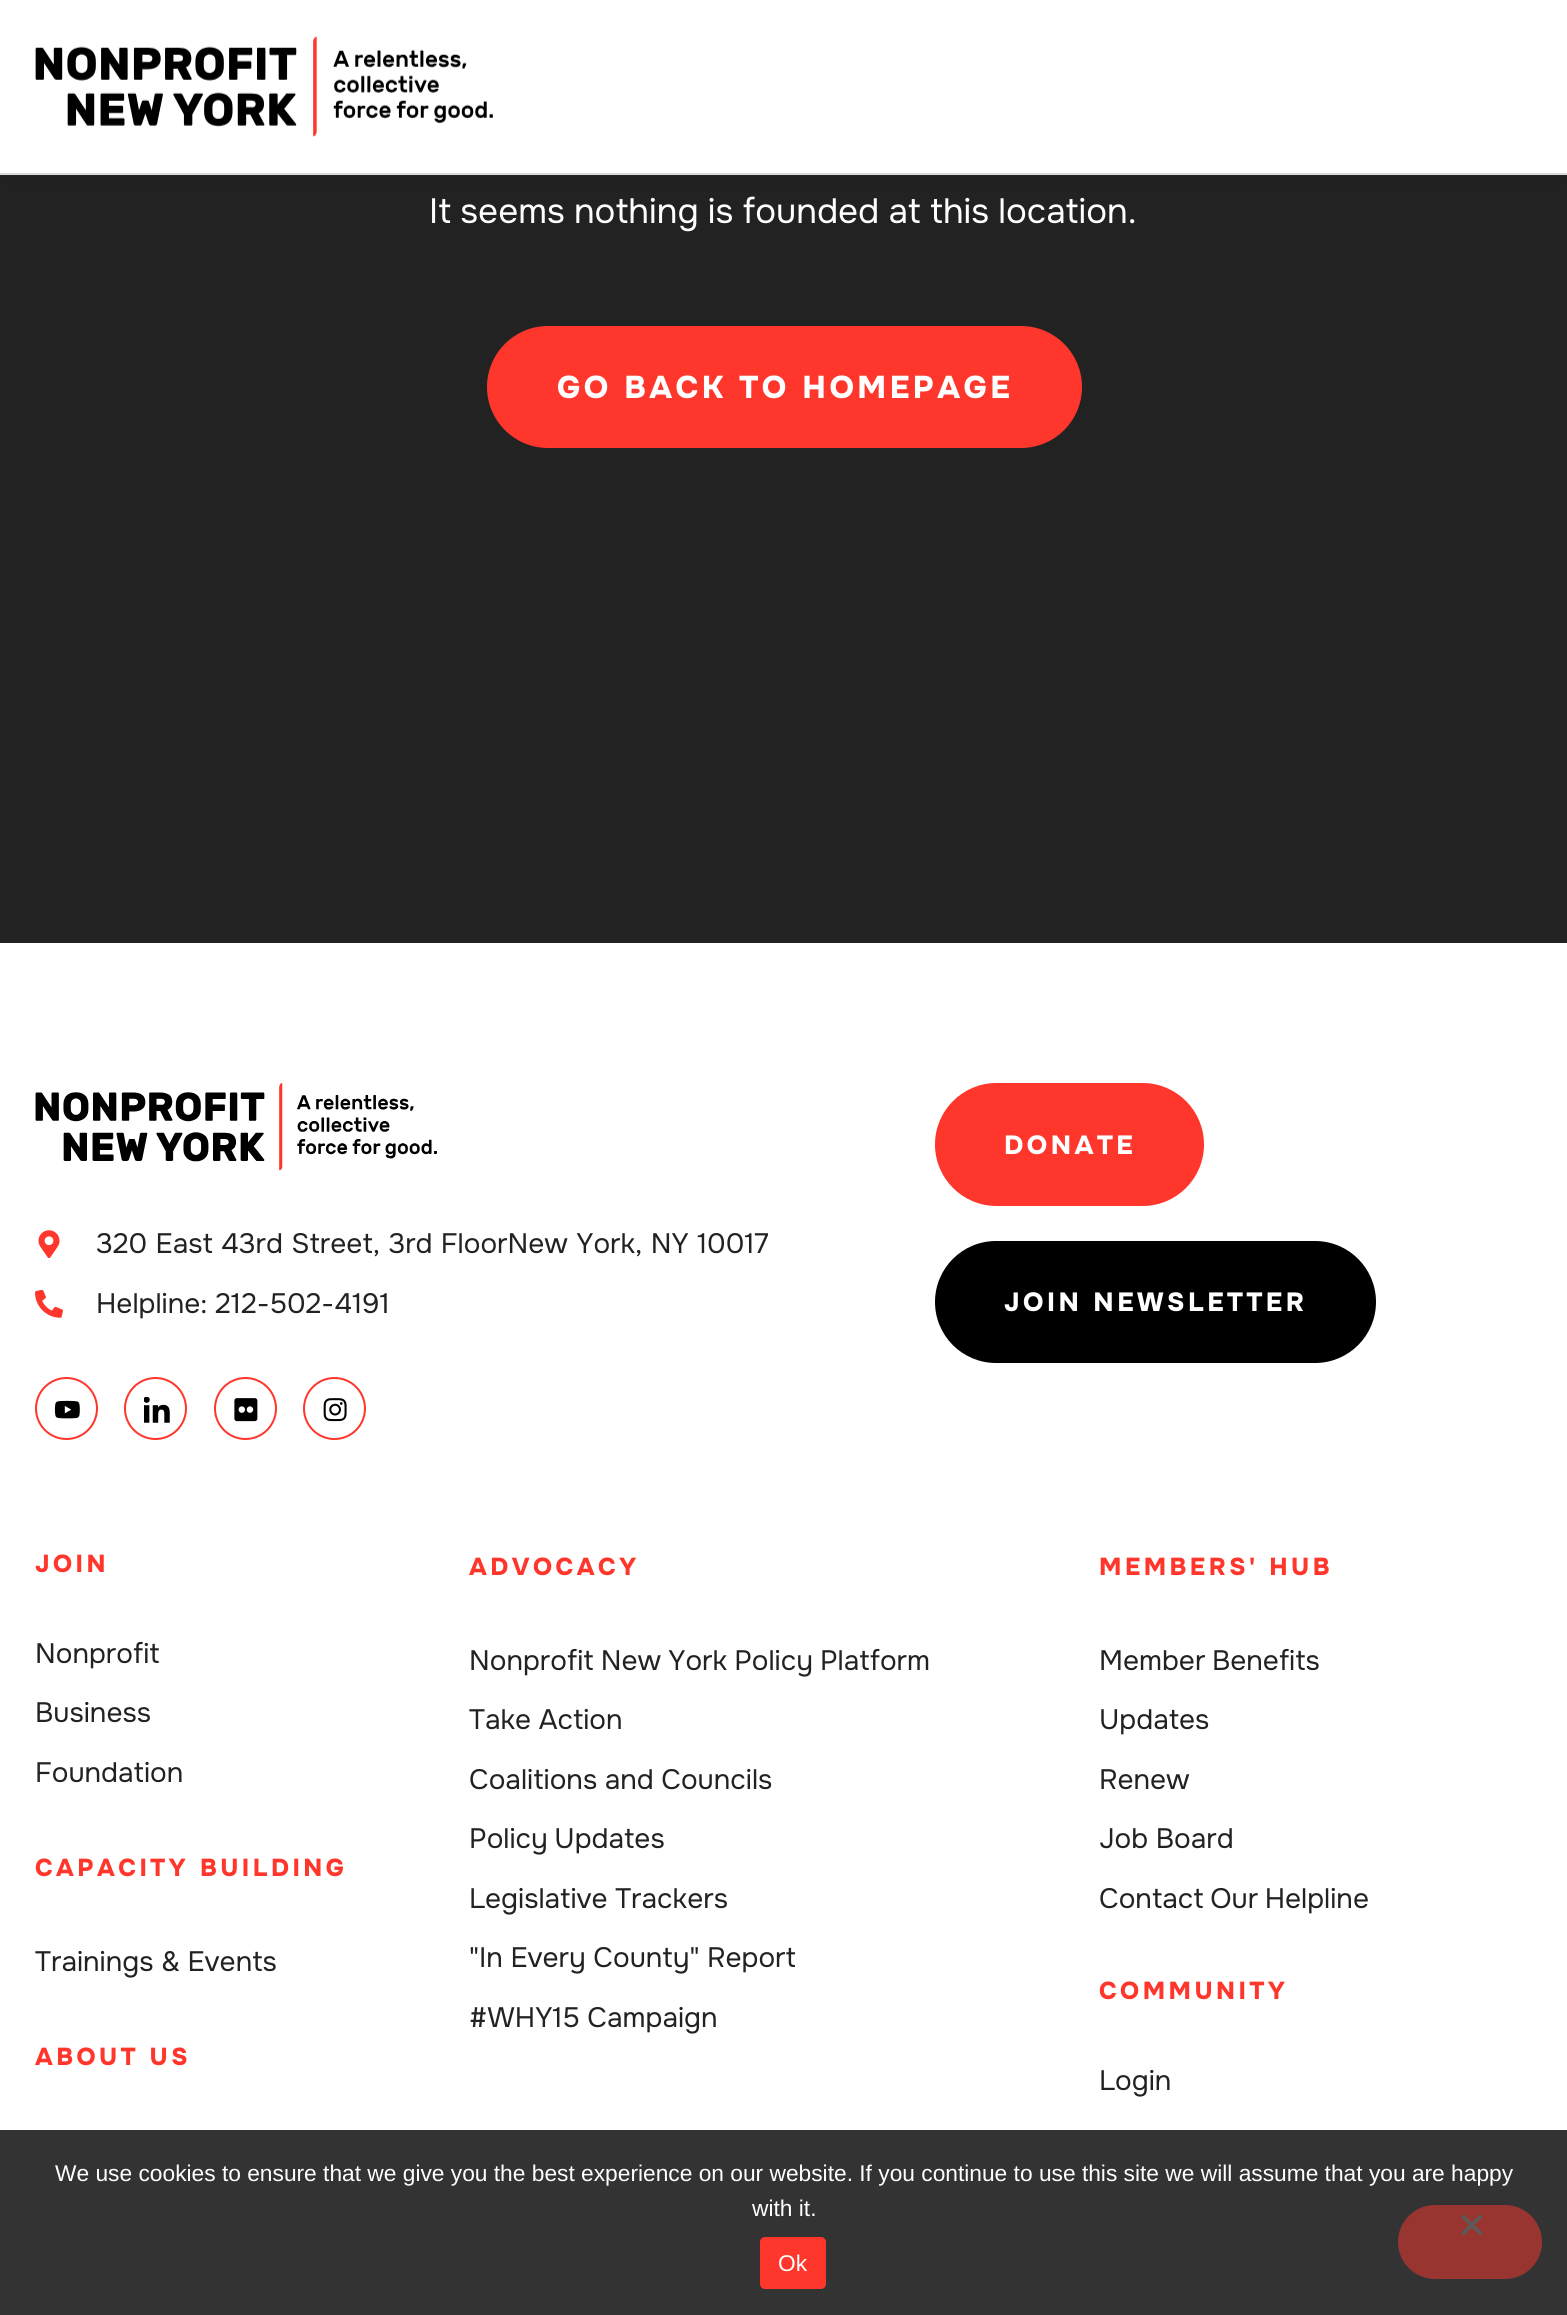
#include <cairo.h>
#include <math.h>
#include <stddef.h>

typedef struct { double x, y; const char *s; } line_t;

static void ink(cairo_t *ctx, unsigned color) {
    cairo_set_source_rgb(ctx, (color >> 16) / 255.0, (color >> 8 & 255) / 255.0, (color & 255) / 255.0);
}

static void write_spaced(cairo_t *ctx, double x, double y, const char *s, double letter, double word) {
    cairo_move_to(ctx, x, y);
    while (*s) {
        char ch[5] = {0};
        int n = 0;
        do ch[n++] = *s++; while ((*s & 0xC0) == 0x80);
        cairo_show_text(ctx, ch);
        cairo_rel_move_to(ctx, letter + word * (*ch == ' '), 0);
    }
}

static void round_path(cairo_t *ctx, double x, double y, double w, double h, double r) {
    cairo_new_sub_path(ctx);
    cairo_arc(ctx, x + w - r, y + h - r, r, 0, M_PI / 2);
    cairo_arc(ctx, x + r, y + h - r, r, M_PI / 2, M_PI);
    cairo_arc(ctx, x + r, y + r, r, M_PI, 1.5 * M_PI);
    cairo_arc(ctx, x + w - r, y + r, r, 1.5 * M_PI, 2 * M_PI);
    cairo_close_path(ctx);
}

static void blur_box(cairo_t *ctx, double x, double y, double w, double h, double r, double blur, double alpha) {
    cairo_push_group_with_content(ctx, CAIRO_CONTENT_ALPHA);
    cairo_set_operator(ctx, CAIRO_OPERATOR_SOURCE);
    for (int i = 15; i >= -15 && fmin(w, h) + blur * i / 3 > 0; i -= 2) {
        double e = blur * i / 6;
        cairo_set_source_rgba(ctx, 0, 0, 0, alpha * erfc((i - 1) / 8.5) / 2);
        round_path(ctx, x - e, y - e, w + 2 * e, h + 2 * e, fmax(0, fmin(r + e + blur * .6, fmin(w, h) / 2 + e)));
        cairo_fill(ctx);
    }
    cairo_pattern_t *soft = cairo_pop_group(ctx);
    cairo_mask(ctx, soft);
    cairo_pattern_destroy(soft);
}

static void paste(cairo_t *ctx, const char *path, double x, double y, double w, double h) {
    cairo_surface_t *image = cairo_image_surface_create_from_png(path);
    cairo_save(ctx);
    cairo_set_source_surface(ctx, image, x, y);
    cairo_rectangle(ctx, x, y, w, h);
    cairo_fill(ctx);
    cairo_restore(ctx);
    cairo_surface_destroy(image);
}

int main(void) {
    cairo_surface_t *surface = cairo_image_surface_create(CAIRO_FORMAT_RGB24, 1567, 2315);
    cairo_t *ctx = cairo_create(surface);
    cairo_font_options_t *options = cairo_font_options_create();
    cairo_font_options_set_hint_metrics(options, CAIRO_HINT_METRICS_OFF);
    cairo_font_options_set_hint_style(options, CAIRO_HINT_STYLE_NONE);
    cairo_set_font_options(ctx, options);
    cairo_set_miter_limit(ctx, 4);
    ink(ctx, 0xFFFFFF);
    cairo_paint(ctx);
    ink(ctx, 0x222222);
    cairo_rectangle(ctx, 0, 175, 1567, 768);
    cairo_fill(ctx);
    ink(ctx, 0x000000);
    blur_box(ctx, 7, 18, 1554, 161, 0, 26, 0.05);
    ink(ctx, 0xFFFFFF);
    cairo_rectangle(ctx, 0, 0, 1567, 173);
    cairo_fill(ctx);
    ink(ctx, 0xDBDBDB);
    cairo_rectangle(ctx, 0, 173, 1567, 2);
    cairo_fill(ctx);
    paste(ctx, "media/1.png", 35, 36, 458, 101);
    cairo_select_font_face(ctx, "Onest", CAIRO_FONT_SLANT_NORMAL, CAIRO_FONT_WEIGHT_NORMAL);
    cairo_set_font_size(ctx, 35);
    ink(ctx, 0xFFFFFF);
    write_spaced(ctx, 429, 223, "It seems nothing is founded at this location.", 0, -0.25);
    ink(ctx, 0xFF362C);
    round_path(ctx, 487, 326, 595, 122, 61);
    cairo_fill(ctx);
    cairo_select_font_face(ctx, "Onest ExtraBold", CAIRO_FONT_SLANT_NORMAL, CAIRO_FONT_WEIGHT_NORMAL);
    cairo_set_font_size(ctx, 31.5);
    ink(ctx, 0xFFFFFF);
    write_spaced(ctx, 557, 398, "GO BACK TO HOMEPAGE", 3.5, 0);
    paste(ctx, "media/2.png", 35, 1083, 402, 88);
    paste(ctx, "media/3.png", 38, 1230, 22, 28);
    cairo_select_font_face(ctx, "Onest", CAIRO_FONT_SLANT_NORMAL, CAIRO_FONT_WEIGHT_NORMAL);
    cairo_set_font_size(ctx, 28);
    ink(ctx, 0x222222);
    write_spaced(ctx, 96, 1253, "320 East 43rd Street, 3rd FloorNew York, NY 10017", 0, 0.75);
    paste(ctx, "media/4.png", 35, 1290, 28, 28);
    cairo_move_to(ctx, 96, 1313);
    cairo_show_text(ctx, "Helpline: 212-502-4191");
    cairo_new_path(ctx);
    cairo_arc(ctx, 66.5, 1408.5, 30.5, 0, 2 * M_PI);
    ink(ctx, 0xFF362C);
    cairo_stroke(ctx);
    paste(ctx, "media/5.png", 54, 1400, 26, 19);
    cairo_arc(ctx, 155.5, 1408.5, 30.5, 0, 2 * M_PI);
    cairo_stroke(ctx);
    paste(ctx, "media/6.png", 144, 1397, 26, 26);
    cairo_arc(ctx, 245.5, 1408.5, 30.5, 0, 2 * M_PI);
    cairo_stroke(ctx);
    paste(ctx, "media/7.png", 234, 1398, 24, 24);
    cairo_arc(ctx, 334.5, 1408.5, 30.5, 0, 2 * M_PI);
    cairo_stroke(ctx);
    paste(ctx, "media/8.png", 323, 1398, 24, 24);
    round_path(ctx, 935, 1083, 269, 123, 61.5);
    cairo_fill(ctx);
    cairo_select_font_face(ctx, "Onest ExtraBold", CAIRO_FONT_SLANT_NORMAL, CAIRO_FONT_WEIGHT_NORMAL);
    cairo_set_font_size(ctx, 26.25);
    ink(ctx, 0xFFFFFF);
    write_spaced(ctx, 1004, 1154, "DONATE", 3.5, 0);
    ink(ctx, 0x000000);
    round_path(ctx, 935, 1241, 441, 122, 61);
    cairo_fill(ctx);
    ink(ctx, 0xFFFFFF);
    write_spaced(ctx, 1004, 1311, "JOIN NEWSLETTER", 3.5, 0);
    cairo_set_font_size(ctx, 24.5);
    ink(ctx, 0xFF362C);
    write_spaced(ctx, 35, 1572, "JOIN", 3.5, 0);
    cairo_select_font_face(ctx, "Onest", CAIRO_FONT_SLANT_NORMAL, CAIRO_FONT_WEIGHT_NORMAL);
    cairo_set_font_size(ctx, 28);
    ink(ctx, 0x222222);
    {
        static const line_t items[] = {
            {35, 1663, "Nonprofit"},
            {35, 1722, "Business"},
            {35, 1782, "Foundation"},
        };
        for (size_t i = 0; i < sizeof items / sizeof *items; i++) {
            cairo_move_to(ctx, items[i].x, items[i].y);
            cairo_show_text(ctx, items[i].s);
        }
    }
    cairo_select_font_face(ctx, "Onest ExtraBold", CAIRO_FONT_SLANT_NORMAL, CAIRO_FONT_WEIGHT_NORMAL);
    cairo_set_font_size(ctx, 24.5);
    ink(ctx, 0xFF362C);
    write_spaced(ctx, 35, 1876, "CAPACITY BUILDING", 3.5, 0);
    cairo_select_font_face(ctx, "Onest", CAIRO_FONT_SLANT_NORMAL, CAIRO_FONT_WEIGHT_NORMAL);
    cairo_set_font_size(ctx, 28);
    ink(ctx, 0x222222);
    cairo_move_to(ctx, 35, 1971);
    cairo_show_text(ctx, "Trainings & Events");
    cairo_select_font_face(ctx, "Onest ExtraBold", CAIRO_FONT_SLANT_NORMAL, CAIRO_FONT_WEIGHT_NORMAL);
    cairo_set_font_size(ctx, 24.5);
    ink(ctx, 0xFF362C);
    write_spaced(ctx, 35, 2065, "ABOUT US", 3.5, 0);
    write_spaced(ctx, 469, 1575, "ADVOCACY", 3.5, 0);
    cairo_select_font_face(ctx, "Onest", CAIRO_FONT_SLANT_NORMAL, CAIRO_FONT_WEIGHT_NORMAL);
    cairo_set_font_size(ctx, 28);
    ink(ctx, 0x222222);
    write_spaced(ctx, 469, 1670, "Nonprofit New York Policy Platform", 0, -0.5);
    cairo_move_to(ctx, 469, 1729);
    cairo_show_text(ctx, "Take Action");
    cairo_move_to(ctx, 469, 1789);
    cairo_show_text(ctx, "Coalitions and Councils");
    write_spaced(ctx, 469, 1848, "Policy Updates", 0, -1);
    {
        static const line_t items[] = {
            {469, 1908, "Legislative Trackers"},
            {469, 1967, "\"In Every County\" Report"},
            {469, 2027, "#WHY15 Campaign"},
        };
        for (size_t i = 0; i < sizeof items / sizeof *items; i++) {
            cairo_move_to(ctx, items[i].x, items[i].y);
            cairo_show_text(ctx, items[i].s);
        }
    }
    cairo_select_font_face(ctx, "Onest ExtraBold", CAIRO_FONT_SLANT_NORMAL, CAIRO_FONT_WEIGHT_NORMAL);
    cairo_set_font_size(ctx, 24.5);
    ink(ctx, 0xFF362C);
    write_spaced(ctx, 1099, 1575, "MEMBERS' HUB", 3.5, 0);
    cairo_select_font_face(ctx, "Onest", CAIRO_FONT_SLANT_NORMAL, CAIRO_FONT_WEIGHT_NORMAL);
    cairo_set_font_size(ctx, 28);
    ink(ctx, 0x222222);
    write_spaced(ctx, 1099, 1670, "Member Benefits", 0, -1);
    {
        static const line_t items[] = {
            {1099, 1729, "Updates"},
            {1099, 1789, "Renew"},
            {1099, 1848, "Job Board"},
        };
        for (size_t i = 0; i < sizeof items / sizeof *items; i++) {
            cairo_move_to(ctx, items[i].x, items[i].y);
            cairo_show_text(ctx, items[i].s);
        }
    }
    write_spaced(ctx, 1099, 1908, "Contact Our Helpline", 0, -1);
    cairo_select_font_face(ctx, "Onest ExtraBold", CAIRO_FONT_SLANT_NORMAL, CAIRO_FONT_WEIGHT_NORMAL);
    cairo_set_font_size(ctx, 24.5);
    ink(ctx, 0xFF362C);
    write_spaced(ctx, 1099, 1999, "COMMUNITY", 3.5, 0);
    cairo_select_font_face(ctx, "Onest", CAIRO_FONT_SLANT_NORMAL, CAIRO_FONT_WEIGHT_NORMAL);
    cairo_set_font_size(ctx, 28);
    ink(ctx, 0x222222);
    cairo_move_to(ctx, 1099, 2090);
    cairo_show_text(ctx, "Login");
    cairo_set_source_rgba(ctx, 0, 0, 0, 0.8);
    cairo_rectangle(ctx, 0, 2130, 1567, 185);
    cairo_fill(ctx);
    cairo_select_font_face(ctx, "Liberation Sans", CAIRO_FONT_SLANT_NORMAL, CAIRO_FONT_WEIGHT_NORMAL);
    cairo_set_font_size(ctx, 22.75);
    ink(ctx, 0xFFFFFF);
    cairo_move_to(ctx, 55, 2181);
    cairo_show_text(ctx, "We use cookies to ensure that we give you the best experience on our website. If you continue to use this site we will assume that you are happy");
    cairo_move_to(ctx, 752, 2216);
    cairo_show_text(ctx, "with it.");
    ink(ctx, 0xFF362C);
    round_path(ctx, 760, 2237, 66, 52, 5);
    cairo_fill(ctx);
    ink(ctx, 0xFFFFFF);
    cairo_move_to(ctx, 778, 2271);
    cairo_show_text(ctx, "Ok");
    ink(ctx, 0x993530);
    round_path(ctx, 1399, 2206, 142, 72, 36);
    cairo_fill_preserve(ctx);
    cairo_stroke(ctx);
    ink(ctx, 0x5A5A5A);
    cairo_new_path(ctx);
    cairo_move_to(ctx, 1480, 2214.5);
    cairo_line_to(ctx, 1482.5, 2217);
    cairo_line_to(ctx, 1463.5, 2235.5);
    cairo_line_to(ctx, 1461, 2233);
    cairo_close_path(ctx);
    cairo_fill(ctx);
    cairo_new_path(ctx);
    cairo_move_to(ctx, 1461, 2217);
    cairo_line_to(ctx, 1463.5, 2214.5);
    cairo_line_to(ctx, 1482.5, 2233);
    cairo_line_to(ctx, 1480, 2235.5);
    cairo_close_path(ctx);
    cairo_fill(ctx);
    cairo_surface_write_to_png(surface, "image.png");
    cairo_font_options_destroy(options);
    cairo_destroy(ctx);
    cairo_surface_destroy(surface);
    return 0;
}
